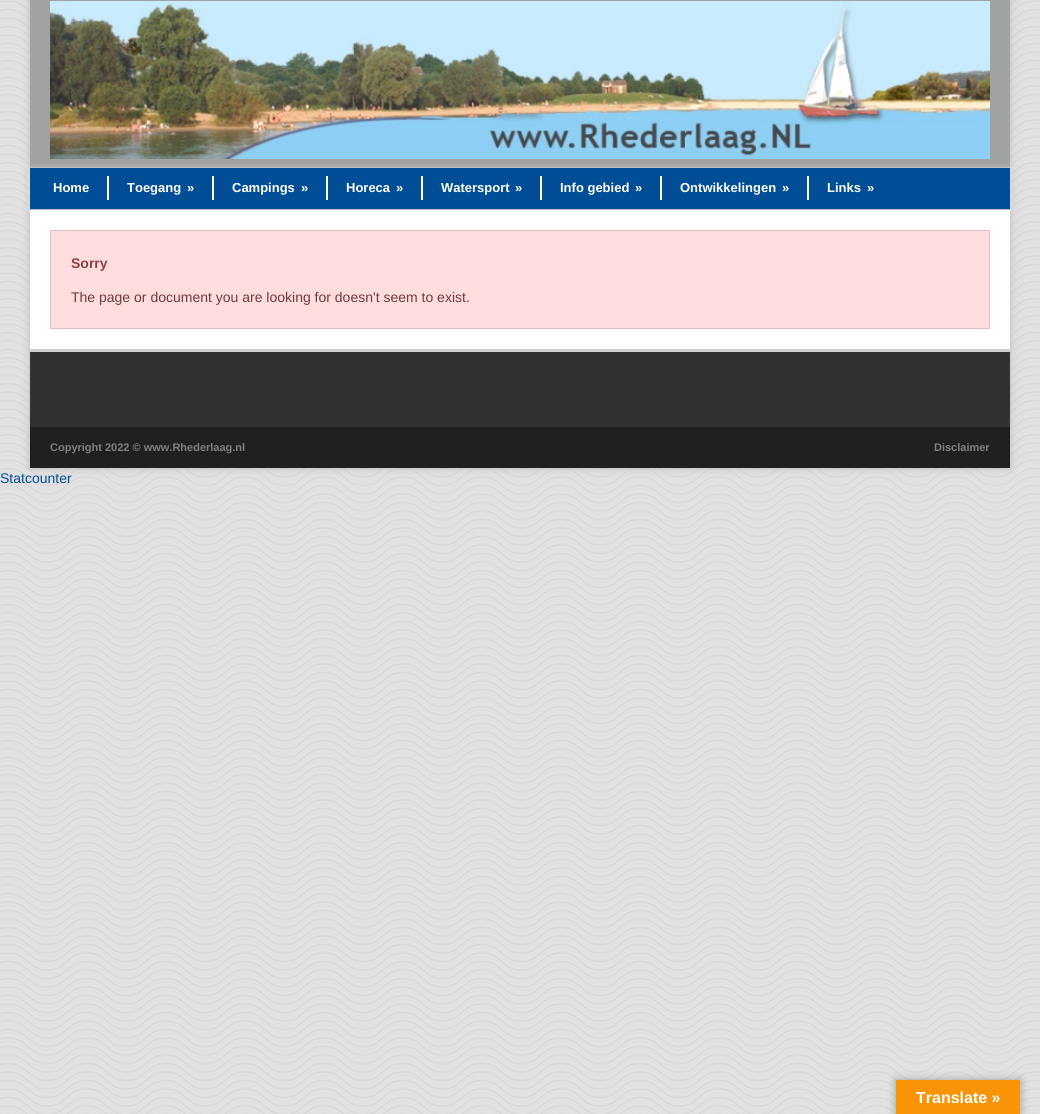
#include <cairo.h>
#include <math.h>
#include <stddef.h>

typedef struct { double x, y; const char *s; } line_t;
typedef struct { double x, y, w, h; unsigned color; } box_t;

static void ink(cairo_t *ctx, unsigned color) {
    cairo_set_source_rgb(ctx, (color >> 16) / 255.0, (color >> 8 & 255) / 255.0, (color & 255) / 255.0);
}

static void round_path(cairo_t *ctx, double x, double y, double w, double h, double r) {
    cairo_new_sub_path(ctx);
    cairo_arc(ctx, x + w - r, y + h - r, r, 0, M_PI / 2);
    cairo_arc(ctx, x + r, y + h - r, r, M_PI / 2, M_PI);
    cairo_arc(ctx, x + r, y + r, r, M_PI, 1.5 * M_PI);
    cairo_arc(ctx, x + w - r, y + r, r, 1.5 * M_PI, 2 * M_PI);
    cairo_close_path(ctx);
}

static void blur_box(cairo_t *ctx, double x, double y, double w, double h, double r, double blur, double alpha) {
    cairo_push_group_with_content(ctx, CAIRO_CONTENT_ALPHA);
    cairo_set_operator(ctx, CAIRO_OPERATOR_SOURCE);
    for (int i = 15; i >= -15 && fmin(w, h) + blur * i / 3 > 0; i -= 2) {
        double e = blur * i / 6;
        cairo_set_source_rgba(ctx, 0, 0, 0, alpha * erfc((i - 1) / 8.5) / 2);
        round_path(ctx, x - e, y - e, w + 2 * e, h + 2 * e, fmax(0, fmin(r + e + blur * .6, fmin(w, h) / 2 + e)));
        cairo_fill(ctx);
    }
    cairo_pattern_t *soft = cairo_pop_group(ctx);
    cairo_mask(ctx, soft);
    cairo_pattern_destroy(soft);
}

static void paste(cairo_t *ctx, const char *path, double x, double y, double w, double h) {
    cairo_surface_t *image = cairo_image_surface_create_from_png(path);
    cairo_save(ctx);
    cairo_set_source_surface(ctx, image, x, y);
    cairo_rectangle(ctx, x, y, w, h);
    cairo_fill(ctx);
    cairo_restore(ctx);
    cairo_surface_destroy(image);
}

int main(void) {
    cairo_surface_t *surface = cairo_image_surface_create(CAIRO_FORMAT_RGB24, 1040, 1114);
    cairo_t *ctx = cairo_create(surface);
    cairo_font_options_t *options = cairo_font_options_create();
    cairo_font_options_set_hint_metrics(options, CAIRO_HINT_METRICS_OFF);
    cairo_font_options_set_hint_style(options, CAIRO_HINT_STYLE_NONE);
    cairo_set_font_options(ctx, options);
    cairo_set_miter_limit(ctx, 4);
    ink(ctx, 0xFFFFFF);
    cairo_paint(ctx);
    paste(ctx, "media/1.png", 0, 0, 1040, 1114);
    ink(ctx, 0xBBBBBB);
    blur_box(ctx, 30, 0, 980, 468, 0, 4, 1);
    ink(ctx, 0xFFFFFF);
    cairo_rectangle(ctx, 30, 210, 980, 139);
    cairo_fill(ctx);
    ink(ctx, 0xA1A3A3);
    cairo_rectangle(ctx, 30, 0, 980, 167);
    cairo_fill(ctx);
    paste(ctx, "media/2.png", 50, 1, 940, 158);
    ink(ctx, 0xF5F5F5);
    blur_box(ctx, 31, 169, 978, 41, 0, 2.5, 1);
    {
        static const box_t items[] = {
            {30, 168, 980, 41, 0x024E96},
            {30, 167, 980, 1, 0xBDBDBD},
            {30, 209, 980, 1, 0xBDBDBD},
            {107, 176, 2, 24, 0xFFFFFF},
        };
        for (size_t i = 0; i < sizeof items / sizeof *items; i++) {
            ink(ctx, items[i].color);
            cairo_rectangle(ctx, items[i].x, items[i].y, items[i].w, items[i].h);
            cairo_fill(ctx);
        }
    }
    cairo_select_font_face(ctx, "Liberation Sans", CAIRO_FONT_SLANT_NORMAL, CAIRO_FONT_WEIGHT_BOLD);
    cairo_set_font_size(ctx, 13);
    cairo_move_to(ctx, 53, 192);
    cairo_show_text(ctx, "Home");
    cairo_rectangle(ctx, 212, 176, 2, 24);
    cairo_fill(ctx);
    cairo_move_to(ctx, 127, 192);
    cairo_show_text(ctx, "Toegang");
    cairo_move_to(ctx, 187, 192);
    cairo_show_text(ctx, "»");
    cairo_rectangle(ctx, 326, 176, 2, 24);
    cairo_fill(ctx);
    cairo_move_to(ctx, 232, 192);
    cairo_show_text(ctx, "Campings");
    cairo_move_to(ctx, 301, 192);
    cairo_show_text(ctx, "»");
    cairo_rectangle(ctx, 421, 176, 2, 24);
    cairo_fill(ctx);
    cairo_move_to(ctx, 346, 192);
    cairo_show_text(ctx, "Horeca");
    cairo_move_to(ctx, 396, 192);
    cairo_show_text(ctx, "»");
    cairo_rectangle(ctx, 540, 176, 2, 24);
    cairo_fill(ctx);
    cairo_move_to(ctx, 441, 192);
    cairo_show_text(ctx, "Watersport");
    cairo_move_to(ctx, 515, 192);
    cairo_show_text(ctx, "»");
    cairo_rectangle(ctx, 660, 176, 2, 24);
    cairo_fill(ctx);
    cairo_move_to(ctx, 560, 192);
    cairo_show_text(ctx, "Info gebied");
    cairo_move_to(ctx, 635, 192);
    cairo_show_text(ctx, "»");
    cairo_rectangle(ctx, 807, 176, 2, 24);
    cairo_fill(ctx);
    {
        static const line_t items[] = {
            {680, 192, "Ontwikkelingen"},
            {782, 192, "»"},
            {827, 192, "Links"},
            {867, 192, "»"},
        };
        for (size_t i = 0; i < sizeof items / sizeof *items; i++) {
            cairo_move_to(ctx, items[i].x, items[i].y);
            cairo_show_text(ctx, items[i].s);
        }
    }
    ink(ctx, 0xFFDCDD);
    cairo_rectangle(ctx, 50.5, 230.5, 939, 98);
    cairo_fill_preserve(ctx);
    ink(ctx, 0xE9B9BB);
    cairo_set_line_width(ctx, 1);
    cairo_stroke(ctx);
    cairo_set_font_size(ctx, 14);
    ink(ctx, 0x8D4345);
    cairo_move_to(ctx, 71, 268);
    cairo_show_text(ctx, "Sorry");
    cairo_select_font_face(ctx, "Liberation Sans", CAIRO_FONT_SLANT_NORMAL, CAIRO_FONT_WEIGHT_NORMAL);
    ink(ctx, 0x713A3C);
    cairo_move_to(ctx, 71, 302);
    cairo_show_text(ctx, "The page or document you are looking for doesn't seem to exist.");
    {
        static const box_t items[] = {
            {30, 352, 980, 75, 0x313131},
            {30, 349, 980, 3, 0xCFCFCF},
            {30, 427, 980, 41, 0x202020},
        };
        for (size_t i = 0; i < sizeof items / sizeof *items; i++) {
            ink(ctx, items[i].color);
            cairo_rectangle(ctx, items[i].x, items[i].y, items[i].w, items[i].h);
            cairo_fill(ctx);
        }
    }
    cairo_select_font_face(ctx, "Liberation Sans", CAIRO_FONT_SLANT_NORMAL, CAIRO_FONT_WEIGHT_BOLD);
    cairo_set_font_size(ctx, 11);
    ink(ctx, 0x808080);
    cairo_move_to(ctx, 50, 451);
    cairo_show_text(ctx, "Copyright 2022 © www.Rhederlaag.nl");
    cairo_move_to(ctx, 934, 451);
    cairo_show_text(ctx, "Disclaimer");
    cairo_select_font_face(ctx, "Liberation Sans", CAIRO_FONT_SLANT_NORMAL, CAIRO_FONT_WEIGHT_NORMAL);
    cairo_set_font_size(ctx, 14);
    ink(ctx, 0x024E96);
    cairo_move_to(ctx, 0, 483);
    cairo_show_text(ctx, "Statcounter");
    ink(ctx, 0x000000);
    blur_box(ctx, 896, 1080, 124, 34, 0, 4.5, 0.3);
    ink(ctx, 0xF89406);
    cairo_rectangle(ctx, 896, 1080, 124, 34);
    cairo_fill(ctx);
    cairo_select_font_face(ctx, "Liberation Sans", CAIRO_FONT_SLANT_NORMAL, CAIRO_FONT_WEIGHT_BOLD);
    cairo_set_font_size(ctx, 16);
    ink(ctx, 0xFFFFFF);
    cairo_move_to(ctx, 916, 1103);
    cairo_show_text(ctx, "Translate »");
    cairo_surface_write_to_png(surface, "image.png");
    cairo_font_options_destroy(options);
    cairo_destroy(ctx);
    cairo_surface_destroy(surface);
    return 0;
}
